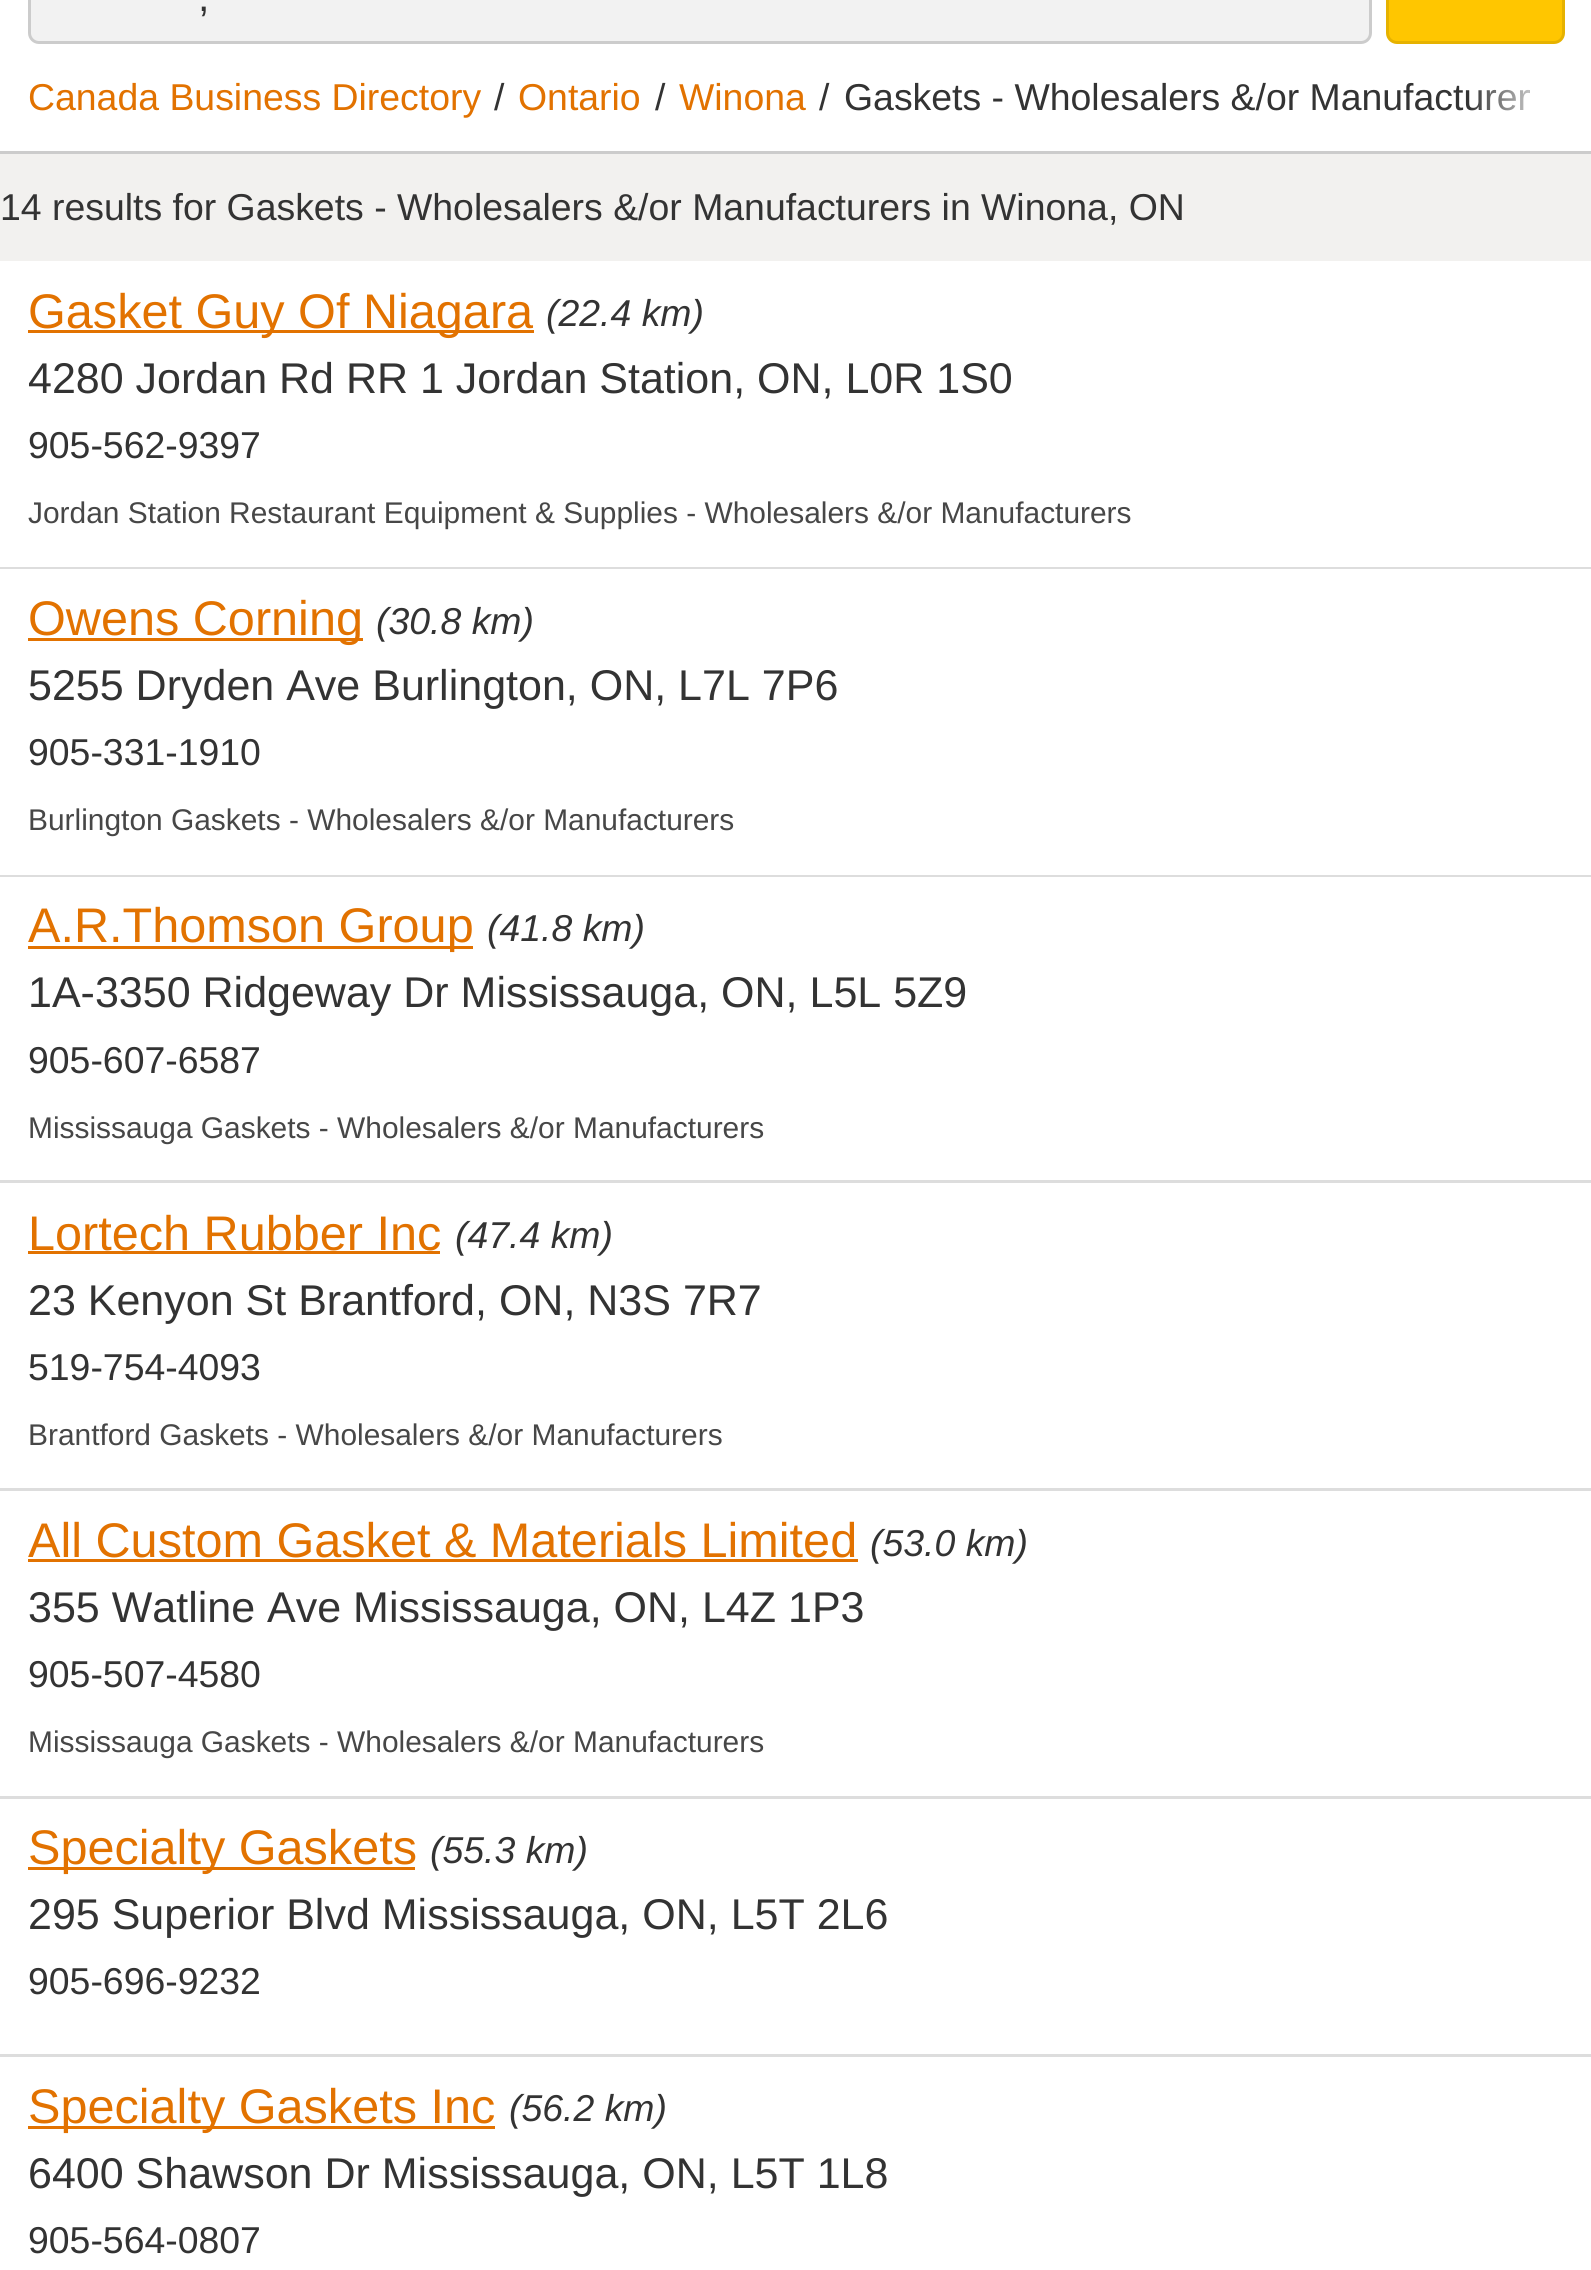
#include <cairo.h>
#include <math.h>
#include <stddef.h>

typedef struct { double x, y, w, h; unsigned color; } box_t;

static void ink(cairo_t *ctx, unsigned color) {
    cairo_set_source_rgb(ctx, (color >> 16) / 255.0, (color >> 8 & 255) / 255.0, (color & 255) / 255.0);
}

static void round_path(cairo_t *ctx, double x, double y, double w, double h, double r) {
    cairo_new_sub_path(ctx);
    cairo_arc(ctx, x + w - r, y + h - r, r, 0, M_PI / 2);
    cairo_arc(ctx, x + r, y + h - r, r, M_PI / 2, M_PI);
    cairo_arc(ctx, x + r, y + r, r, M_PI, 1.5 * M_PI);
    cairo_arc(ctx, x + w - r, y + r, r, 1.5 * M_PI, 2 * M_PI);
    cairo_close_path(ctx);
}

int main(void) {
    cairo_surface_t *surface = cairo_image_surface_create(CAIRO_FORMAT_RGB24, 1591, 2270);
    cairo_t *ctx = cairo_create(surface);
    cairo_font_options_t *options = cairo_font_options_create();
    cairo_font_options_set_hint_metrics(options, CAIRO_HINT_METRICS_OFF);
    cairo_font_options_set_hint_style(options, CAIRO_HINT_STYLE_NONE);
    cairo_set_font_options(ctx, options);
    cairo_set_miter_limit(ctx, 4);
    cairo_pattern_t *gradient;
    ink(ctx, 0xF2F1EF);
    cairo_paint(ctx);
    ink(ctx, 0xFFFFFF);
    cairo_rectangle(ctx, 0, 0, 1591, 151);
    cairo_fill(ctx);
    ink(ctx, 0xCCCCCC);
    cairo_rectangle(ctx, 0, 151, 1591, 3);
    cairo_fill(ctx);
    ink(ctx, 0xF2F2F2);
    round_path(ctx, 29.5, -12.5, 1341, 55, 9.5);
    cairo_fill_preserve(ctx);
    ink(ctx, 0xCCCCCC);
    cairo_set_line_width(ctx, 3);
    cairo_stroke(ctx);
    cairo_select_font_face(ctx, "Liberation Sans", CAIRO_FONT_SLANT_NORMAL, CAIRO_FONT_WEIGHT_NORMAL);
    cairo_set_font_size(ctx, 41);
    ink(ctx, 0x333333);
    cairo_move_to(ctx, 198, 11);
    cairo_show_text(ctx, ",");
    ink(ctx, 0xFFC600);
    round_path(ctx, 1387.5, -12.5, 176, 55, 9.5);
    cairo_fill_preserve(ctx);
    ink(ctx, 0xE6B200);
    cairo_stroke(ctx);
    cairo_set_font_size(ctx, 37.4);
    ink(ctx, 0xE27200);
    cairo_move_to(ctx, 28, 110);
    cairo_show_text(ctx, "Canada Business Directory");
    ink(ctx, 0x333333);
    cairo_move_to(ctx, 494, 110);
    cairo_show_text(ctx, "/");
    ink(ctx, 0xE27200);
    cairo_move_to(ctx, 518, 110);
    cairo_show_text(ctx, "Ontario");
    ink(ctx, 0x333333);
    cairo_move_to(ctx, 655, 110);
    cairo_show_text(ctx, "/");
    ink(ctx, 0xE27200);
    cairo_move_to(ctx, 679, 110);
    cairo_show_text(ctx, "Winona");
    ink(ctx, 0x333333);
    cairo_move_to(ctx, 819, 110);
    cairo_show_text(ctx, "/");
    cairo_move_to(ctx, 844, 110);
    cairo_show_text(ctx, "Gaskets - Wholesalers &/or Manufacturer");
    gradient = cairo_pattern_create_linear(1469, 98, 1565, 98);
    cairo_pattern_add_color_stop_rgba(gradient, 0, 1, 1, 1, 0);
    cairo_pattern_add_color_stop_rgba(gradient, 0.9, 1, 1, 1, 1);
    cairo_set_source(ctx, gradient);
    cairo_pattern_destroy(gradient);
    cairo_rectangle(ctx, 1471, 89, 58, 22);
    cairo_fill(ctx);
    ink(ctx, 0x333333);
    cairo_move_to(ctx, 0, 220);
    cairo_show_text(ctx, "14 results for Gaskets - Wholesalers &/or Manufacturers in Winona, ON");
    {
        static const box_t items[] = {
            {0, 261, 1591, 306, 0xFFFFFF},
            {0, 567, 1591, 2, 0xDDDDDD},
            {28, 330, 506, 3, 0xE27200},
        };
        for (size_t i = 0; i < sizeof items / sizeof *items; i++) {
            ink(ctx, items[i].color);
            cairo_rectangle(ctx, items[i].x, items[i].y, items[i].w, items[i].h);
            cairo_fill(ctx);
        }
    }
    cairo_set_font_size(ctx, 48.6);
    cairo_move_to(ctx, 28, 328);
    cairo_show_text(ctx, "Gasket Guy Of Niagara");
    cairo_select_font_face(ctx, "Liberation Sans", CAIRO_FONT_SLANT_ITALIC, CAIRO_FONT_WEIGHT_NORMAL);
    cairo_set_font_size(ctx, 37.4);
    ink(ctx, 0x333333);
    cairo_move_to(ctx, 546, 326);
    cairo_show_text(ctx, "(22.4 km)");
    cairo_select_font_face(ctx, "Liberation Sans", CAIRO_FONT_SLANT_NORMAL, CAIRO_FONT_WEIGHT_NORMAL);
    cairo_set_font_size(ctx, 43);
    cairo_move_to(ctx, 28, 393);
    cairo_show_text(ctx, "4280 Jordan Rd RR 1 Jordan Station, ON, L0R 1S0");
    cairo_set_font_size(ctx, 37.4);
    cairo_move_to(ctx, 28, 458);
    cairo_show_text(ctx, "905-562-9397");
    cairo_set_font_size(ctx, 29.9);
    ink(ctx, 0x474747);
    cairo_move_to(ctx, 28, 523);
    cairo_show_text(ctx, "Jordan Station Restaurant Equipment & Supplies - Wholesalers &/or Manufacturers");
    {
        static const box_t items[] = {
            {0, 569, 1591, 306, 0xFFFFFF},
            {0, 875, 1591, 2, 0xDDDDDD},
            {28, 638, 335, 3, 0xE27200},
        };
        for (size_t i = 0; i < sizeof items / sizeof *items; i++) {
            ink(ctx, items[i].color);
            cairo_rectangle(ctx, items[i].x, items[i].y, items[i].w, items[i].h);
            cairo_fill(ctx);
        }
    }
    cairo_set_font_size(ctx, 48.6);
    cairo_move_to(ctx, 28, 635);
    cairo_show_text(ctx, "Owens Corning");
    cairo_select_font_face(ctx, "Liberation Sans", CAIRO_FONT_SLANT_ITALIC, CAIRO_FONT_WEIGHT_NORMAL);
    cairo_set_font_size(ctx, 37.4);
    ink(ctx, 0x333333);
    cairo_move_to(ctx, 376, 634);
    cairo_show_text(ctx, "(30.8 km)");
    cairo_select_font_face(ctx, "Liberation Sans", CAIRO_FONT_SLANT_NORMAL, CAIRO_FONT_WEIGHT_NORMAL);
    cairo_set_font_size(ctx, 43);
    cairo_move_to(ctx, 28, 700);
    cairo_show_text(ctx, "5255 Dryden Ave Burlington, ON, L7L 7P6");
    cairo_set_font_size(ctx, 37.4);
    cairo_move_to(ctx, 28, 765);
    cairo_show_text(ctx, "905-331-1910");
    cairo_set_font_size(ctx, 29.9);
    ink(ctx, 0x474747);
    cairo_move_to(ctx, 28, 830);
    cairo_show_text(ctx, "Burlington Gaskets - Wholesalers &/or Manufacturers");
    {
        static const box_t items[] = {
            {0, 877, 1591, 303, 0xFFFFFF},
            {0, 1180, 1591, 3, 0xDDDDDD},
            {28, 946, 445, 3, 0xE27200},
        };
        for (size_t i = 0; i < sizeof items / sizeof *items; i++) {
            ink(ctx, items[i].color);
            cairo_rectangle(ctx, items[i].x, items[i].y, items[i].w, items[i].h);
            cairo_fill(ctx);
        }
    }
    cairo_set_font_size(ctx, 48.6);
    cairo_move_to(ctx, 28, 942);
    cairo_show_text(ctx, "A.R.Thomson Group");
    cairo_select_font_face(ctx, "Liberation Sans", CAIRO_FONT_SLANT_ITALIC, CAIRO_FONT_WEIGHT_NORMAL);
    cairo_set_font_size(ctx, 37.4);
    ink(ctx, 0x333333);
    cairo_move_to(ctx, 487, 941);
    cairo_show_text(ctx, "(41.8 km)");
    cairo_select_font_face(ctx, "Liberation Sans", CAIRO_FONT_SLANT_NORMAL, CAIRO_FONT_WEIGHT_NORMAL);
    cairo_set_font_size(ctx, 43);
    cairo_move_to(ctx, 28, 1007);
    cairo_show_text(ctx, "1A-3350 Ridgeway Dr Mississauga, ON, L5L 5Z9");
    cairo_set_font_size(ctx, 37.4);
    cairo_move_to(ctx, 28, 1073);
    cairo_show_text(ctx, "905-607-6587");
    cairo_set_font_size(ctx, 29.9);
    ink(ctx, 0x474747);
    cairo_move_to(ctx, 28, 1138);
    cairo_show_text(ctx, "Mississauga Gaskets - Wholesalers &/or Manufacturers");
    ink(ctx, 0xFFFFFF);
    cairo_rectangle(ctx, 0, 1183, 1591, 305);
    cairo_fill(ctx);
    ink(ctx, 0xDDDDDD);
    cairo_rectangle(ctx, 0, 1488, 1591, 3);
    cairo_fill(ctx);
    cairo_set_font_size(ctx, 48.6);
    ink(ctx, 0xE27200);
    cairo_move_to(ctx, 28, 1250);
    cairo_show_text(ctx, "Lortech Rubber Inc");
    cairo_rectangle(ctx, 28, 1251, 412, 3);
    cairo_fill(ctx);
    cairo_select_font_face(ctx, "Liberation Sans", CAIRO_FONT_SLANT_ITALIC, CAIRO_FONT_WEIGHT_NORMAL);
    cairo_set_font_size(ctx, 37.4);
    ink(ctx, 0x333333);
    cairo_move_to(ctx, 455, 1248);
    cairo_show_text(ctx, "(47.4 km)");
    cairo_select_font_face(ctx, "Liberation Sans", CAIRO_FONT_SLANT_NORMAL, CAIRO_FONT_WEIGHT_NORMAL);
    cairo_set_font_size(ctx, 43);
    cairo_move_to(ctx, 28, 1315);
    cairo_show_text(ctx, "23 Kenyon St Brantford, ON, N3S 7R7");
    cairo_set_font_size(ctx, 37.4);
    cairo_move_to(ctx, 28, 1380);
    cairo_show_text(ctx, "519-754-4093");
    cairo_set_font_size(ctx, 29.9);
    ink(ctx, 0x474747);
    cairo_move_to(ctx, 28, 1445);
    cairo_show_text(ctx, "Brantford Gaskets - Wholesalers &/or Manufacturers");
    ink(ctx, 0xFFFFFF);
    cairo_rectangle(ctx, 0, 1491, 1591, 305);
    cairo_fill(ctx);
    ink(ctx, 0xDDDDDD);
    cairo_rectangle(ctx, 0, 1796, 1591, 3);
    cairo_fill(ctx);
    cairo_set_font_size(ctx, 48.6);
    ink(ctx, 0xE27200);
    cairo_move_to(ctx, 28, 1557);
    cairo_show_text(ctx, "All Custom Gasket & Materials Limited");
    cairo_rectangle(ctx, 28, 1559, 830, 3);
    cairo_fill(ctx);
    cairo_select_font_face(ctx, "Liberation Sans", CAIRO_FONT_SLANT_ITALIC, CAIRO_FONT_WEIGHT_NORMAL);
    cairo_set_font_size(ctx, 37.4);
    ink(ctx, 0x333333);
    cairo_move_to(ctx, 870, 1556);
    cairo_show_text(ctx, "(53.0 km)");
    cairo_select_font_face(ctx, "Liberation Sans", CAIRO_FONT_SLANT_NORMAL, CAIRO_FONT_WEIGHT_NORMAL);
    cairo_set_font_size(ctx, 43);
    cairo_move_to(ctx, 28, 1622);
    cairo_show_text(ctx, "355 Watline Ave Mississauga, ON, L4Z 1P3");
    cairo_set_font_size(ctx, 37.4);
    cairo_move_to(ctx, 28, 1687);
    cairo_show_text(ctx, "905-507-4580");
    cairo_set_font_size(ctx, 29.9);
    ink(ctx, 0x474747);
    cairo_move_to(ctx, 28, 1752);
    cairo_show_text(ctx, "Mississauga Gaskets - Wholesalers &/or Manufacturers");
    {
        static const box_t items[] = {
            {0, 1799, 1591, 255, 0xFFFFFF},
            {0, 2054, 1591, 3, 0xDDDDDD},
            {28, 1867, 387, 3, 0xE27200},
        };
        for (size_t i = 0; i < sizeof items / sizeof *items; i++) {
            ink(ctx, items[i].color);
            cairo_rectangle(ctx, items[i].x, items[i].y, items[i].w, items[i].h);
            cairo_fill(ctx);
        }
    }
    cairo_set_font_size(ctx, 48.6);
    cairo_move_to(ctx, 28, 1864);
    cairo_show_text(ctx, "Specialty Gaskets");
    cairo_select_font_face(ctx, "Liberation Sans", CAIRO_FONT_SLANT_ITALIC, CAIRO_FONT_WEIGHT_NORMAL);
    cairo_set_font_size(ctx, 37.4);
    ink(ctx, 0x333333);
    cairo_move_to(ctx, 430, 1863);
    cairo_show_text(ctx, "(55.3 km)");
    cairo_select_font_face(ctx, "Liberation Sans", CAIRO_FONT_SLANT_NORMAL, CAIRO_FONT_WEIGHT_NORMAL);
    cairo_set_font_size(ctx, 43);
    cairo_move_to(ctx, 28, 1929);
    cairo_show_text(ctx, "295 Superior Blvd Mississauga, ON, L5T 2L6");
    cairo_set_font_size(ctx, 37.4);
    cairo_move_to(ctx, 28, 1994);
    cairo_show_text(ctx, "905-696-9232");
    ink(ctx, 0xFFFFFF);
    cairo_rectangle(ctx, 0, 2057, 1591, 213);
    cairo_fill(ctx);
    ink(ctx, 0xE27200);
    cairo_rectangle(ctx, 28, 2126, 467, 3);
    cairo_fill(ctx);
    cairo_set_font_size(ctx, 48.6);
    cairo_move_to(ctx, 28, 2123);
    cairo_show_text(ctx, "Specialty Gaskets Inc");
    cairo_select_font_face(ctx, "Liberation Sans", CAIRO_FONT_SLANT_ITALIC, CAIRO_FONT_WEIGHT_NORMAL);
    cairo_set_font_size(ctx, 37.4);
    ink(ctx, 0x333333);
    cairo_move_to(ctx, 509, 2121);
    cairo_show_text(ctx, "(56.2 km)");
    cairo_select_font_face(ctx, "Liberation Sans", CAIRO_FONT_SLANT_NORMAL, CAIRO_FONT_WEIGHT_NORMAL);
    cairo_set_font_size(ctx, 43);
    cairo_move_to(ctx, 28, 2188);
    cairo_show_text(ctx, "6400 Shawson Dr Mississauga, ON, L5T 1L8");
    cairo_set_font_size(ctx, 37.4);
    cairo_move_to(ctx, 28, 2253);
    cairo_show_text(ctx, "905-564-0807");
    cairo_surface_write_to_png(surface, "image.png");
    cairo_font_options_destroy(options);
    cairo_destroy(ctx);
    cairo_surface_destroy(surface);
    return 0;
}
